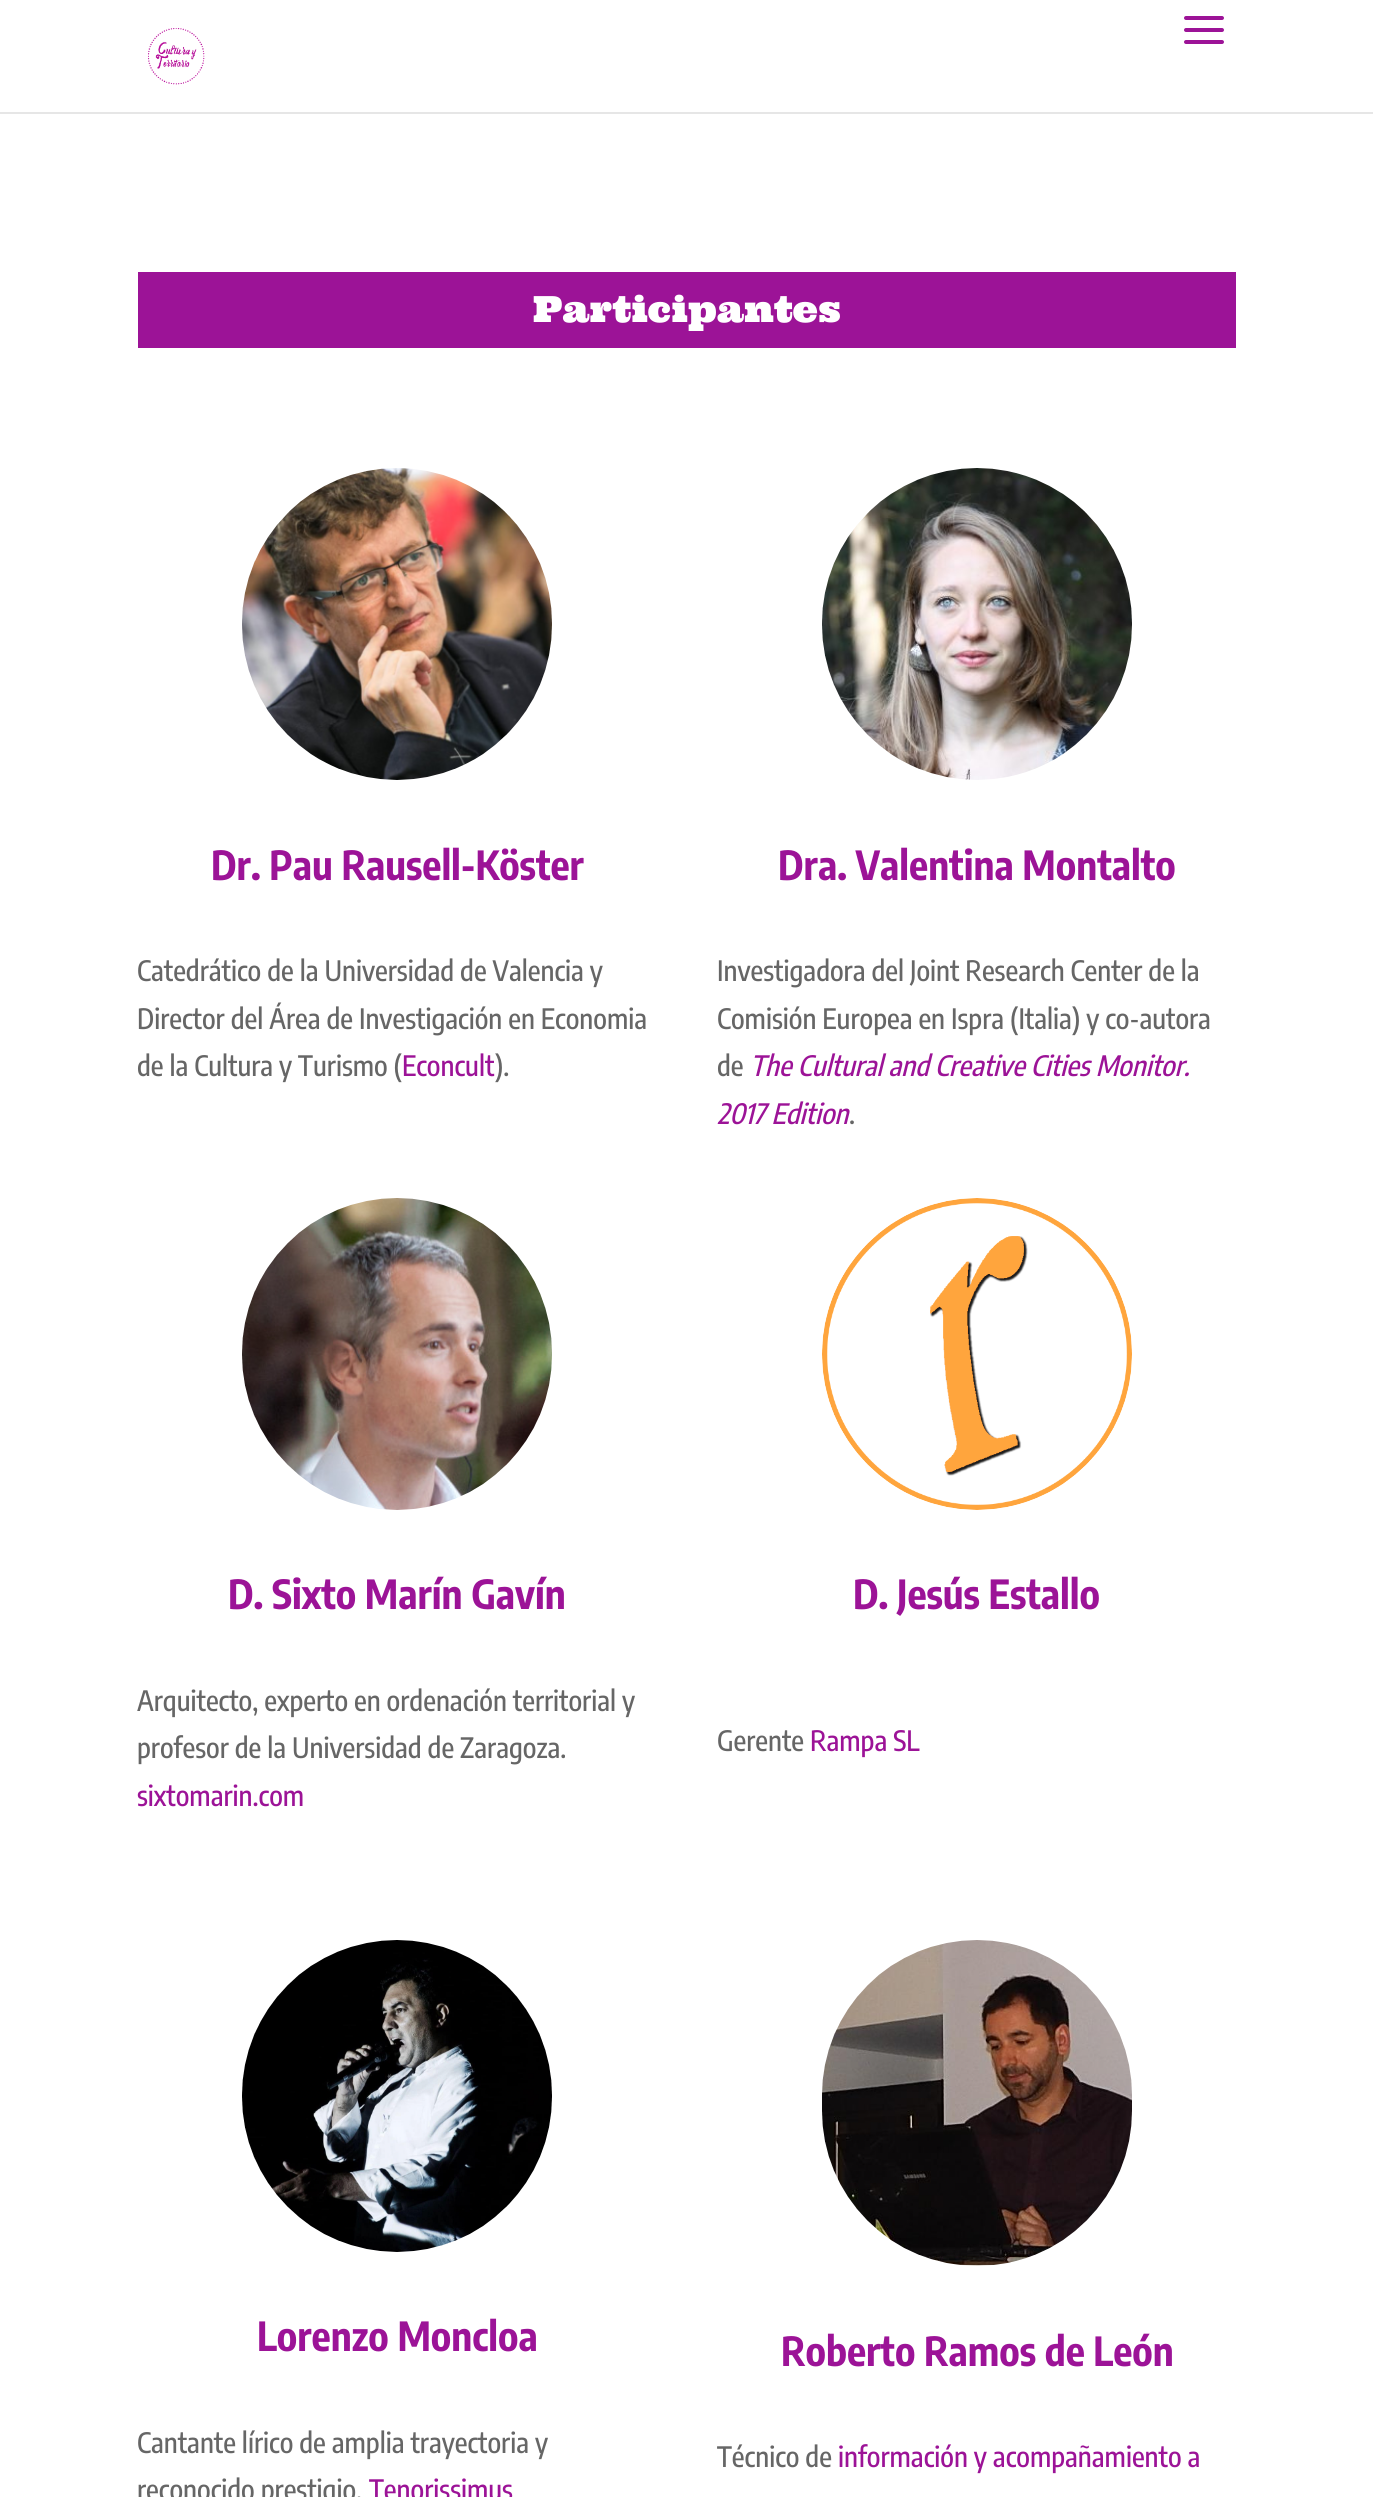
#include <cairo.h>
#include <math.h>
#include <stddef.h>

typedef struct { double x, y; const char *s; } line_t;

static void ink(cairo_t *ctx, unsigned color) {
    cairo_set_source_rgb(ctx, (color >> 16) / 255.0, (color >> 8 & 255) / 255.0, (color & 255) / 255.0);
}

static void paste(cairo_t *ctx, const char *path, double x, double y, double w, double h) {
    cairo_surface_t *image = cairo_image_surface_create_from_png(path);
    cairo_save(ctx);
    cairo_set_source_surface(ctx, image, x, y);
    cairo_rectangle(ctx, x, y, w, h);
    cairo_fill(ctx);
    cairo_restore(ctx);
    cairo_surface_destroy(image);
}

int main(void) {
    cairo_surface_t *surface = cairo_image_surface_create(CAIRO_FORMAT_RGB24, 1373, 2497);
    cairo_t *ctx = cairo_create(surface);
    cairo_font_options_t *options = cairo_font_options_create();
    cairo_font_options_set_hint_metrics(options, CAIRO_HINT_METRICS_OFF);
    cairo_font_options_set_hint_style(options, CAIRO_HINT_STYLE_NONE);
    cairo_set_font_options(ctx, options);
    cairo_set_miter_limit(ctx, 4);
    ink(ctx, 0xFFFFFF);
    cairo_paint(ctx);
    ink(ctx, 0xE6E6E6);
    cairo_rectangle(ctx, 0, 112, 1373, 2);
    cairo_fill(ctx);
    paste(ctx, "media/1.png", 148, 28, 57, 57);
    paste(ctx, "media/2.png", 1184, 16, 40, 28);
    ink(ctx, 0x9C1397);
    cairo_rectangle(ctx, 138, 272, 1098, 76);
    cairo_fill(ctx);
    cairo_select_font_face(ctx, "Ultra", CAIRO_FONT_SLANT_NORMAL, CAIRO_FONT_WEIGHT_NORMAL);
    cairo_set_font_size(ctx, 36);
    ink(ctx, 0xFFFFFF);
    cairo_move_to(ctx, 533, 322);
    cairo_show_text(ctx, "Participantes");
    paste(ctx, "media/3.png", 242, 468, 310, 312);
    cairo_select_font_face(ctx, "Encode Sans Condensed", CAIRO_FONT_SLANT_NORMAL, CAIRO_FONT_WEIGHT_BOLD);
    cairo_set_font_size(ctx, 40);
    ink(ctx, 0x9C1397);
    cairo_move_to(ctx, 211, 880);
    cairo_show_text(ctx, "Dr. Pau Rausell-Köster");
    cairo_select_font_face(ctx, "Encode Sans Condensed Medium", CAIRO_FONT_SLANT_NORMAL, CAIRO_FONT_WEIGHT_NORMAL);
    cairo_set_font_size(ctx, 28);
    ink(ctx, 0x666666);
    {
        static const line_t items[] = {
            {137, 981, "Catedrático de la Universidad de Valencia y"},
            {137, 1029, "Director del Área de Investigación en Economia"},
            {137, 1076, "de la Cultura y Turismo ("},
        };
        for (size_t i = 0; i < sizeof items / sizeof *items; i++) {
            cairo_move_to(ctx, items[i].x, items[i].y);
            cairo_show_text(ctx, items[i].s);
        }
    }
    ink(ctx, 0x9C1397);
    cairo_move_to(ctx, 402, 1076);
    cairo_show_text(ctx, "Econcult");
    ink(ctx, 0x666666);
    cairo_move_to(ctx, 495, 1076);
    cairo_show_text(ctx, ").");
    paste(ctx, "media/4.png", 822, 468, 310, 312);
    cairo_select_font_face(ctx, "Encode Sans Condensed", CAIRO_FONT_SLANT_NORMAL, CAIRO_FONT_WEIGHT_BOLD);
    cairo_set_font_size(ctx, 40);
    ink(ctx, 0x9C1397);
    cairo_move_to(ctx, 778, 880);
    cairo_show_text(ctx, "Dra. Valentina Montalto");
    cairo_select_font_face(ctx, "Encode Sans Condensed Medium", CAIRO_FONT_SLANT_NORMAL, CAIRO_FONT_WEIGHT_NORMAL);
    cairo_set_font_size(ctx, 28);
    ink(ctx, 0x666666);
    {
        static const line_t items[] = {
            {717, 981, "Investigadora del Joint Research Center de la"},
            {717, 1029, "Comisión Europea en Ispra (Italia) y co-autora"},
            {717, 1076, "de"},
        };
        for (size_t i = 0; i < sizeof items / sizeof *items; i++) {
            cairo_move_to(ctx, items[i].x, items[i].y);
            cairo_show_text(ctx, items[i].s);
        }
    }
    cairo_select_font_face(ctx, "Encode Sans Condensed Medium", CAIRO_FONT_SLANT_ITALIC, CAIRO_FONT_WEIGHT_NORMAL);
    ink(ctx, 0x9C1397);
    cairo_move_to(ctx, 750, 1076);
    cairo_show_text(ctx, "The Cultural and Creative Cities Monitor.");
    cairo_move_to(ctx, 717, 1124);
    cairo_show_text(ctx, "2017 Edition");
    cairo_select_font_face(ctx, "Encode Sans Condensed Medium", CAIRO_FONT_SLANT_NORMAL, CAIRO_FONT_WEIGHT_NORMAL);
    ink(ctx, 0x666666);
    cairo_move_to(ctx, 849, 1124);
    cairo_show_text(ctx, ".");
    paste(ctx, "media/5.png", 242, 1198, 310, 312);
    cairo_select_font_face(ctx, "Encode Sans Condensed", CAIRO_FONT_SLANT_NORMAL, CAIRO_FONT_WEIGHT_BOLD);
    cairo_set_font_size(ctx, 40);
    ink(ctx, 0x9C1397);
    cairo_move_to(ctx, 228, 1609);
    cairo_show_text(ctx, "D. Sixto Marín Gavín");
    cairo_select_font_face(ctx, "Encode Sans Condensed Medium", CAIRO_FONT_SLANT_NORMAL, CAIRO_FONT_WEIGHT_NORMAL);
    cairo_set_font_size(ctx, 28);
    ink(ctx, 0x666666);
    cairo_move_to(ctx, 137, 1711);
    cairo_show_text(ctx, "Arquitecto, experto en ordenación territorial y");
    cairo_move_to(ctx, 137, 1758);
    cairo_show_text(ctx, "profesor de la Universidad de Zaragoza.");
    ink(ctx, 0x9C1397);
    cairo_move_to(ctx, 137, 1806);
    cairo_show_text(ctx, "sixtomarin.com");
    paste(ctx, "media/6.png", 822, 1198, 310, 312);
    cairo_select_font_face(ctx, "Encode Sans Condensed", CAIRO_FONT_SLANT_NORMAL, CAIRO_FONT_WEIGHT_BOLD);
    cairo_set_font_size(ctx, 40);
    cairo_move_to(ctx, 853, 1609);
    cairo_show_text(ctx, "D. Jesús Estallo");
    cairo_select_font_face(ctx, "Encode Sans Condensed Medium", CAIRO_FONT_SLANT_NORMAL, CAIRO_FONT_WEIGHT_NORMAL);
    cairo_set_font_size(ctx, 28);
    ink(ctx, 0x666666);
    cairo_move_to(ctx, 717, 1751);
    cairo_show_text(ctx, "Gerente");
    ink(ctx, 0x9C1397);
    cairo_move_to(ctx, 810, 1751);
    cairo_show_text(ctx, "Rampa SL");
    paste(ctx, "media/7.png", 242, 1940, 310, 312);
    cairo_select_font_face(ctx, "Encode Sans Condensed", CAIRO_FONT_SLANT_NORMAL, CAIRO_FONT_WEIGHT_BOLD);
    cairo_set_font_size(ctx, 40);
    cairo_move_to(ctx, 257, 2351);
    cairo_show_text(ctx, "Lorenzo Moncloa");
    cairo_select_font_face(ctx, "Encode Sans Condensed Medium", CAIRO_FONT_SLANT_NORMAL, CAIRO_FONT_WEIGHT_NORMAL);
    cairo_set_font_size(ctx, 28);
    ink(ctx, 0x666666);
    cairo_move_to(ctx, 137, 2453);
    cairo_show_text(ctx, "Cantante lírico de amplia trayectoria y");
    cairo_move_to(ctx, 137, 2500);
    cairo_show_text(ctx, "reconocido prestigio.");
    ink(ctx, 0x9C1397);
    cairo_move_to(ctx, 369, 2500);
    cairo_show_text(ctx, "Tenorissimus");
    paste(ctx, "media/8.png", 822, 1940, 310, 326);
    cairo_select_font_face(ctx, "Encode Sans Condensed", CAIRO_FONT_SLANT_NORMAL, CAIRO_FONT_WEIGHT_BOLD);
    cairo_set_font_size(ctx, 40);
    cairo_move_to(ctx, 781, 2366);
    cairo_show_text(ctx, "Roberto Ramos de León");
    cairo_select_font_face(ctx, "Encode Sans Condensed Medium", CAIRO_FONT_SLANT_NORMAL, CAIRO_FONT_WEIGHT_NORMAL);
    cairo_set_font_size(ctx, 28);
    ink(ctx, 0x666666);
    cairo_move_to(ctx, 717, 2467);
    cairo_show_text(ctx, "Técnico de");
    ink(ctx, 0x9C1397);
    cairo_move_to(ctx, 838, 2467);
    cairo_show_text(ctx, "información y acompañamiento a");
    cairo_surface_write_to_png(surface, "image.png");
    cairo_font_options_destroy(options);
    cairo_destroy(ctx);
    cairo_surface_destroy(surface);
    return 0;
}
